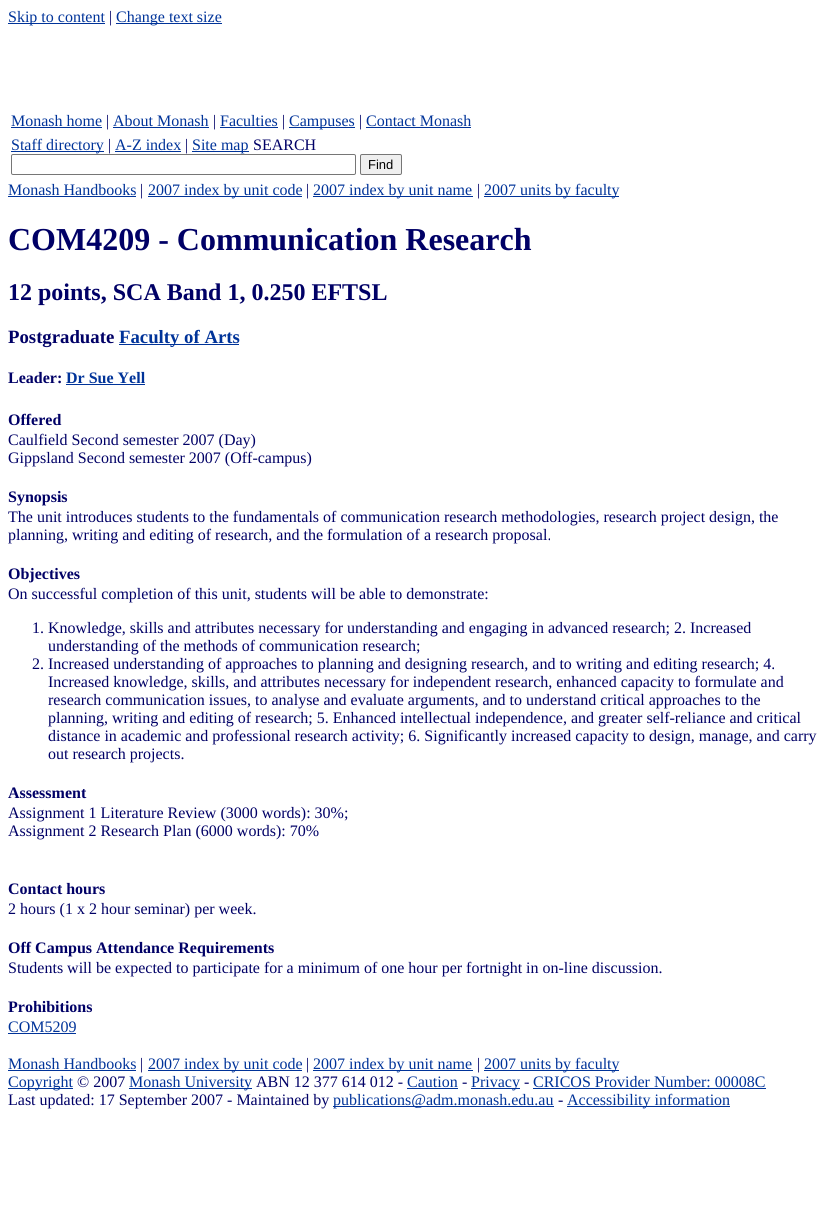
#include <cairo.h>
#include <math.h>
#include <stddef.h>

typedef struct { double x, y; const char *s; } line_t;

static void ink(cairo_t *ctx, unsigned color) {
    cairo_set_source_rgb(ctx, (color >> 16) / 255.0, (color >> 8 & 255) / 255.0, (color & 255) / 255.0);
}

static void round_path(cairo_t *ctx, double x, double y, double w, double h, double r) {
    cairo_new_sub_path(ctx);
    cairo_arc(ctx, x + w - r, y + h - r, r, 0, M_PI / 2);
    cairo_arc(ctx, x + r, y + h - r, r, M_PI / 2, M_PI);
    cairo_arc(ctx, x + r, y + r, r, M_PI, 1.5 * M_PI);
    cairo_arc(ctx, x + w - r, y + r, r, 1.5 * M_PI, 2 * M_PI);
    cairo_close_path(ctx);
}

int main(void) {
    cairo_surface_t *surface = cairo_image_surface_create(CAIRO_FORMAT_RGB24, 826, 1222);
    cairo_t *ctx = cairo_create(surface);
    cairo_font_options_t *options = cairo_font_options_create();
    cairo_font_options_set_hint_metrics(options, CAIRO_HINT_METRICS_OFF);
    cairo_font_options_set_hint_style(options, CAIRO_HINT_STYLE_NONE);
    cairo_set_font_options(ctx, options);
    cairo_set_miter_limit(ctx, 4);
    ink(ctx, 0xFFFFFF);
    cairo_paint(ctx);
    ink(ctx, 0x003399);
    cairo_rectangle(ctx, 8, 23, 97, 1);
    cairo_fill(ctx);
    cairo_select_font_face(ctx, "Liberation Serif", CAIRO_FONT_SLANT_NORMAL, CAIRO_FONT_WEIGHT_NORMAL);
    cairo_set_font_size(ctx, 16);
    cairo_move_to(ctx, 8, 22);
    cairo_show_text(ctx, "Skip to content");
    ink(ctx, 0x000066);
    cairo_move_to(ctx, 109, 22);
    cairo_show_text(ctx, "|");
    ink(ctx, 0x003399);
    cairo_rectangle(ctx, 116, 23, 106, 1);
    cairo_fill(ctx);
    cairo_move_to(ctx, 116, 22);
    cairo_show_text(ctx, "Change text size");
    cairo_move_to(ctx, 11, 126);
    cairo_show_text(ctx, "Monash home");
    cairo_rectangle(ctx, 11, 127, 91, 1);
    cairo_fill(ctx);
    ink(ctx, 0x000066);
    cairo_move_to(ctx, 106, 126);
    cairo_show_text(ctx, "|");
    ink(ctx, 0x003399);
    cairo_move_to(ctx, 113, 126);
    cairo_show_text(ctx, "About Monash");
    cairo_rectangle(ctx, 113, 127, 96, 1);
    cairo_fill(ctx);
    ink(ctx, 0x000066);
    cairo_move_to(ctx, 213, 126);
    cairo_show_text(ctx, "|");
    ink(ctx, 0x003399);
    cairo_move_to(ctx, 220, 126);
    cairo_show_text(ctx, "Faculties");
    cairo_rectangle(ctx, 220, 127, 58, 1);
    cairo_fill(ctx);
    ink(ctx, 0x000066);
    cairo_move_to(ctx, 282, 126);
    cairo_show_text(ctx, "|");
    ink(ctx, 0x003399);
    cairo_rectangle(ctx, 289, 127, 66, 1);
    cairo_fill(ctx);
    cairo_move_to(ctx, 289, 126);
    cairo_show_text(ctx, "Campuses");
    ink(ctx, 0x000066);
    cairo_move_to(ctx, 359, 126);
    cairo_show_text(ctx, "|");
    ink(ctx, 0x003399);
    cairo_move_to(ctx, 366, 126);
    cairo_show_text(ctx, "Contact Monash");
    cairo_rectangle(ctx, 366, 127, 105, 1);
    cairo_fill(ctx);
    cairo_rectangle(ctx, 11, 151, 93, 1);
    cairo_fill(ctx);
    cairo_move_to(ctx, 11, 150);
    cairo_show_text(ctx, "Staff directory");
    ink(ctx, 0x000066);
    cairo_move_to(ctx, 108, 150);
    cairo_show_text(ctx, "|");
    ink(ctx, 0x003399);
    cairo_move_to(ctx, 115, 150);
    cairo_show_text(ctx, "A-Z index");
    cairo_rectangle(ctx, 115, 151, 66, 1);
    cairo_fill(ctx);
    ink(ctx, 0x000066);
    cairo_move_to(ctx, 185, 150);
    cairo_show_text(ctx, "|");
    ink(ctx, 0x003399);
    cairo_rectangle(ctx, 192, 151, 57, 1);
    cairo_fill(ctx);
    cairo_move_to(ctx, 192, 150);
    cairo_show_text(ctx, "Site map");
    ink(ctx, 0x000066);
    cairo_move_to(ctx, 253, 150);
    cairo_show_text(ctx, "SEARCH");
    round_path(ctx, 11.5, 154.5, 344, 20, 1.5);
    ink(ctx, 0x767676);
    cairo_set_line_width(ctx, 1);
    cairo_stroke(ctx);
    ink(ctx, 0xEFEFEF);
    round_path(ctx, 360.5, 154.5, 41, 20, 1.5);
    cairo_fill_preserve(ctx);
    ink(ctx, 0x767676);
    cairo_stroke(ctx);
    cairo_select_font_face(ctx, "Liberation Sans", CAIRO_FONT_SLANT_NORMAL, CAIRO_FONT_WEIGHT_NORMAL);
    cairo_set_font_size(ctx, 13);
    ink(ctx, 0x000000);
    cairo_move_to(ctx, 368, 169);
    cairo_show_text(ctx, "Find");
    cairo_select_font_face(ctx, "Liberation Serif", CAIRO_FONT_SLANT_NORMAL, CAIRO_FONT_WEIGHT_NORMAL);
    cairo_set_font_size(ctx, 16);
    ink(ctx, 0x003399);
    cairo_move_to(ctx, 8, 195);
    cairo_show_text(ctx, "Monash Handbooks");
    cairo_rectangle(ctx, 8, 196, 128, 1);
    cairo_fill(ctx);
    ink(ctx, 0x000066);
    cairo_move_to(ctx, 140, 195);
    cairo_show_text(ctx, "|");
    ink(ctx, 0x003399);
    cairo_rectangle(ctx, 148, 196, 154, 1);
    cairo_fill(ctx);
    cairo_move_to(ctx, 148, 195);
    cairo_show_text(ctx, "2007 index by unit code");
    ink(ctx, 0x000066);
    cairo_move_to(ctx, 306, 195);
    cairo_show_text(ctx, "|");
    ink(ctx, 0x003399);
    cairo_rectangle(ctx, 313, 196, 160, 1);
    cairo_fill(ctx);
    cairo_move_to(ctx, 313, 195);
    cairo_show_text(ctx, "2007 index by unit name");
    ink(ctx, 0x000066);
    cairo_move_to(ctx, 477, 195);
    cairo_show_text(ctx, "|");
    ink(ctx, 0x003399);
    cairo_rectangle(ctx, 484, 196, 135, 1);
    cairo_fill(ctx);
    cairo_move_to(ctx, 484, 195);
    cairo_show_text(ctx, "2007 units by faculty");
    cairo_select_font_face(ctx, "Liberation Serif", CAIRO_FONT_SLANT_NORMAL, CAIRO_FONT_WEIGHT_BOLD);
    cairo_set_font_size(ctx, 32);
    ink(ctx, 0x000066);
    cairo_move_to(ctx, 8, 250);
    cairo_show_text(ctx, "COM4209 - Communication Research");
    cairo_set_font_size(ctx, 24);
    cairo_move_to(ctx, 8, 300);
    cairo_show_text(ctx, "12 points, SCA Band 1, 0.250 EFTSL");
    cairo_set_font_size(ctx, 18.75);
    cairo_move_to(ctx, 8, 343);
    cairo_show_text(ctx, "Postgraduate");
    ink(ctx, 0x003399);
    cairo_rectangle(ctx, 119, 344, 120, 1);
    cairo_fill(ctx);
    cairo_move_to(ctx, 119, 343);
    cairo_show_text(ctx, "Faculty of Arts");
    cairo_set_font_size(ctx, 16);
    ink(ctx, 0x000066);
    cairo_move_to(ctx, 8, 383);
    cairo_show_text(ctx, "Leader:");
    ink(ctx, 0x003399);
    cairo_move_to(ctx, 66, 383);
    cairo_show_text(ctx, "Dr Sue Yell");
    cairo_rectangle(ctx, 66, 384, 79, 1);
    cairo_fill(ctx);
    ink(ctx, 0x000066);
    cairo_move_to(ctx, 8, 425);
    cairo_show_text(ctx, "Offered");
    cairo_select_font_face(ctx, "Liberation Serif", CAIRO_FONT_SLANT_NORMAL, CAIRO_FONT_WEIGHT_NORMAL);
    cairo_move_to(ctx, 8, 445);
    cairo_show_text(ctx, "Caulfield Second semester 2007 (Day)");
    cairo_move_to(ctx, 8, 463);
    cairo_show_text(ctx, "Gippsland Second semester 2007 (Off-campus)");
    cairo_select_font_face(ctx, "Liberation Serif", CAIRO_FONT_SLANT_NORMAL, CAIRO_FONT_WEIGHT_BOLD);
    cairo_move_to(ctx, 8, 502);
    cairo_show_text(ctx, "Synopsis");
    cairo_select_font_face(ctx, "Liberation Serif", CAIRO_FONT_SLANT_NORMAL, CAIRO_FONT_WEIGHT_NORMAL);
    cairo_move_to(ctx, 8, 522);
    cairo_show_text(ctx, "The unit introduces students to the fundamentals of communication research methodologies, research project design, the");
    cairo_move_to(ctx, 8, 540);
    cairo_show_text(ctx, "planning, writing and editing of research, and the formulation of a research proposal.");
    cairo_select_font_face(ctx, "Liberation Serif", CAIRO_FONT_SLANT_NORMAL, CAIRO_FONT_WEIGHT_BOLD);
    cairo_move_to(ctx, 8, 579);
    cairo_show_text(ctx, "Objectives");
    cairo_select_font_face(ctx, "Liberation Serif", CAIRO_FONT_SLANT_NORMAL, CAIRO_FONT_WEIGHT_NORMAL);
    {
        static const line_t items[] = {
            {8, 599, "On successful completion of this unit, students will be able to demonstrate:"},
            {32, 633, "1. Knowledge, skills and attributes necessary for understanding and engaging in advanced research; 2. Increased"},
            {48, 651, "understanding of the methods of communication research;"},
            {32, 669, "2. Increased understanding of approaches to planning and designing research, and to writing and editing research; 4."},
            {48, 687, "Increased knowledge, skills, and attributes necessary for independent research, enhanced capacity to formulate and"},
            {48, 705, "research communication issues, to analyse and evaluate arguments, and to understand critical approaches to the"},
            {48, 723, "planning, writing and editing of research; 5. Enhanced intellectual independence, and greater self-reliance and critical"},
            {48, 741, "distance in academic and professional research activity; 6. Significantly increased capacity to design, manage, and carry"},
            {48, 759, "out research projects."},
        };
        for (size_t i = 0; i < sizeof items / sizeof *items; i++) {
            cairo_move_to(ctx, items[i].x, items[i].y);
            cairo_show_text(ctx, items[i].s);
        }
    }
    cairo_select_font_face(ctx, "Liberation Serif", CAIRO_FONT_SLANT_NORMAL, CAIRO_FONT_WEIGHT_BOLD);
    cairo_move_to(ctx, 8, 798);
    cairo_show_text(ctx, "Assessment");
    cairo_select_font_face(ctx, "Liberation Serif", CAIRO_FONT_SLANT_NORMAL, CAIRO_FONT_WEIGHT_NORMAL);
    cairo_move_to(ctx, 8, 818);
    cairo_show_text(ctx, "Assignment 1 Literature Review (3000 words): 30%;");
    cairo_move_to(ctx, 8, 836);
    cairo_show_text(ctx, "Assignment 2 Research Plan (6000 words): 70%");
    cairo_select_font_face(ctx, "Liberation Serif", CAIRO_FONT_SLANT_NORMAL, CAIRO_FONT_WEIGHT_BOLD);
    cairo_move_to(ctx, 8, 894);
    cairo_show_text(ctx, "Contact hours");
    cairo_select_font_face(ctx, "Liberation Serif", CAIRO_FONT_SLANT_NORMAL, CAIRO_FONT_WEIGHT_NORMAL);
    cairo_move_to(ctx, 8, 914);
    cairo_show_text(ctx, "2 hours (1 x 2 hour seminar) per week.");
    cairo_select_font_face(ctx, "Liberation Serif", CAIRO_FONT_SLANT_NORMAL, CAIRO_FONT_WEIGHT_BOLD);
    cairo_move_to(ctx, 8, 953);
    cairo_show_text(ctx, "Off Campus Attendance Requirements");
    cairo_select_font_face(ctx, "Liberation Serif", CAIRO_FONT_SLANT_NORMAL, CAIRO_FONT_WEIGHT_NORMAL);
    cairo_move_to(ctx, 8, 973);
    cairo_show_text(ctx, "Students will be expected to participate for a minimum of one hour per fortnight in on-line discussion.");
    cairo_select_font_face(ctx, "Liberation Serif", CAIRO_FONT_SLANT_NORMAL, CAIRO_FONT_WEIGHT_BOLD);
    cairo_move_to(ctx, 8, 1012);
    cairo_show_text(ctx, "Prohibitions");
    cairo_select_font_face(ctx, "Liberation Serif", CAIRO_FONT_SLANT_NORMAL, CAIRO_FONT_WEIGHT_NORMAL);
    ink(ctx, 0x003399);
    cairo_move_to(ctx, 8, 1032);
    cairo_show_text(ctx, "COM5209");
    cairo_rectangle(ctx, 8, 1033, 68, 1);
    cairo_fill(ctx);
    cairo_move_to(ctx, 8, 1069);
    cairo_show_text(ctx, "Monash Handbooks");
    cairo_rectangle(ctx, 8, 1070, 128, 1);
    cairo_fill(ctx);
    ink(ctx, 0x000066);
    cairo_move_to(ctx, 140, 1069);
    cairo_show_text(ctx, "|");
    ink(ctx, 0x003399);
    cairo_rectangle(ctx, 148, 1070, 154, 1);
    cairo_fill(ctx);
    cairo_move_to(ctx, 148, 1069);
    cairo_show_text(ctx, "2007 index by unit code");
    ink(ctx, 0x000066);
    cairo_move_to(ctx, 306, 1069);
    cairo_show_text(ctx, "|");
    ink(ctx, 0x003399);
    cairo_rectangle(ctx, 313, 1070, 160, 1);
    cairo_fill(ctx);
    cairo_move_to(ctx, 313, 1069);
    cairo_show_text(ctx, "2007 index by unit name");
    ink(ctx, 0x000066);
    cairo_move_to(ctx, 477, 1069);
    cairo_show_text(ctx, "|");
    ink(ctx, 0x003399);
    cairo_rectangle(ctx, 484, 1070, 135, 1);
    cairo_fill(ctx);
    cairo_move_to(ctx, 484, 1069);
    cairo_show_text(ctx, "2007 units by faculty");
    cairo_rectangle(ctx, 8, 1088, 65, 1);
    cairo_fill(ctx);
    cairo_move_to(ctx, 8, 1087);
    cairo_show_text(ctx, "Copyright");
    ink(ctx, 0x000066);
    cairo_move_to(ctx, 77, 1087);
    cairo_show_text(ctx, "© 2007");
    ink(ctx, 0x003399);
    cairo_rectangle(ctx, 129, 1088, 123, 1);
    cairo_fill(ctx);
    cairo_move_to(ctx, 129, 1087);
    cairo_show_text(ctx, "Monash University");
    ink(ctx, 0x000066);
    cairo_move_to(ctx, 256, 1087);
    cairo_show_text(ctx, "ABN 12 377 614 012 -");
    ink(ctx, 0x003399);
    cairo_move_to(ctx, 407, 1087);
    cairo_show_text(ctx, "Caution");
    cairo_rectangle(ctx, 407, 1088, 51, 1);
    cairo_fill(ctx);
    ink(ctx, 0x000066);
    cairo_move_to(ctx, 462, 1087);
    cairo_show_text(ctx, "-");
    ink(ctx, 0x003399);
    cairo_rectangle(ctx, 471, 1088, 49, 1);
    cairo_fill(ctx);
    cairo_move_to(ctx, 471, 1087);
    cairo_show_text(ctx, "Privacy");
    ink(ctx, 0x000066);
    cairo_move_to(ctx, 524, 1087);
    cairo_show_text(ctx, "-");
    ink(ctx, 0x003399);
    cairo_move_to(ctx, 533, 1087);
    cairo_show_text(ctx, "CRICOS Provider Number: 00008C");
    cairo_rectangle(ctx, 533, 1088, 233, 1);
    cairo_fill(ctx);
    ink(ctx, 0x000066);
    cairo_move_to(ctx, 8, 1105);
    cairo_show_text(ctx, "Last updated: 17 September 2007 - Maintained by");
    ink(ctx, 0x003399);
    cairo_rectangle(ctx, 333, 1106, 221, 1);
    cairo_fill(ctx);
    cairo_move_to(ctx, 333, 1105);
    cairo_show_text(ctx, "publications@adm.monash.edu.au");
    ink(ctx, 0x000066);
    cairo_move_to(ctx, 558, 1105);
    cairo_show_text(ctx, "-");
    ink(ctx, 0x003399);
    cairo_rectangle(ctx, 567, 1106, 163, 1);
    cairo_fill(ctx);
    cairo_move_to(ctx, 567, 1105);
    cairo_show_text(ctx, "Accessibility information");
    cairo_surface_write_to_png(surface, "image.png");
    cairo_font_options_destroy(options);
    cairo_destroy(ctx);
    cairo_surface_destroy(surface);
    return 0;
}
